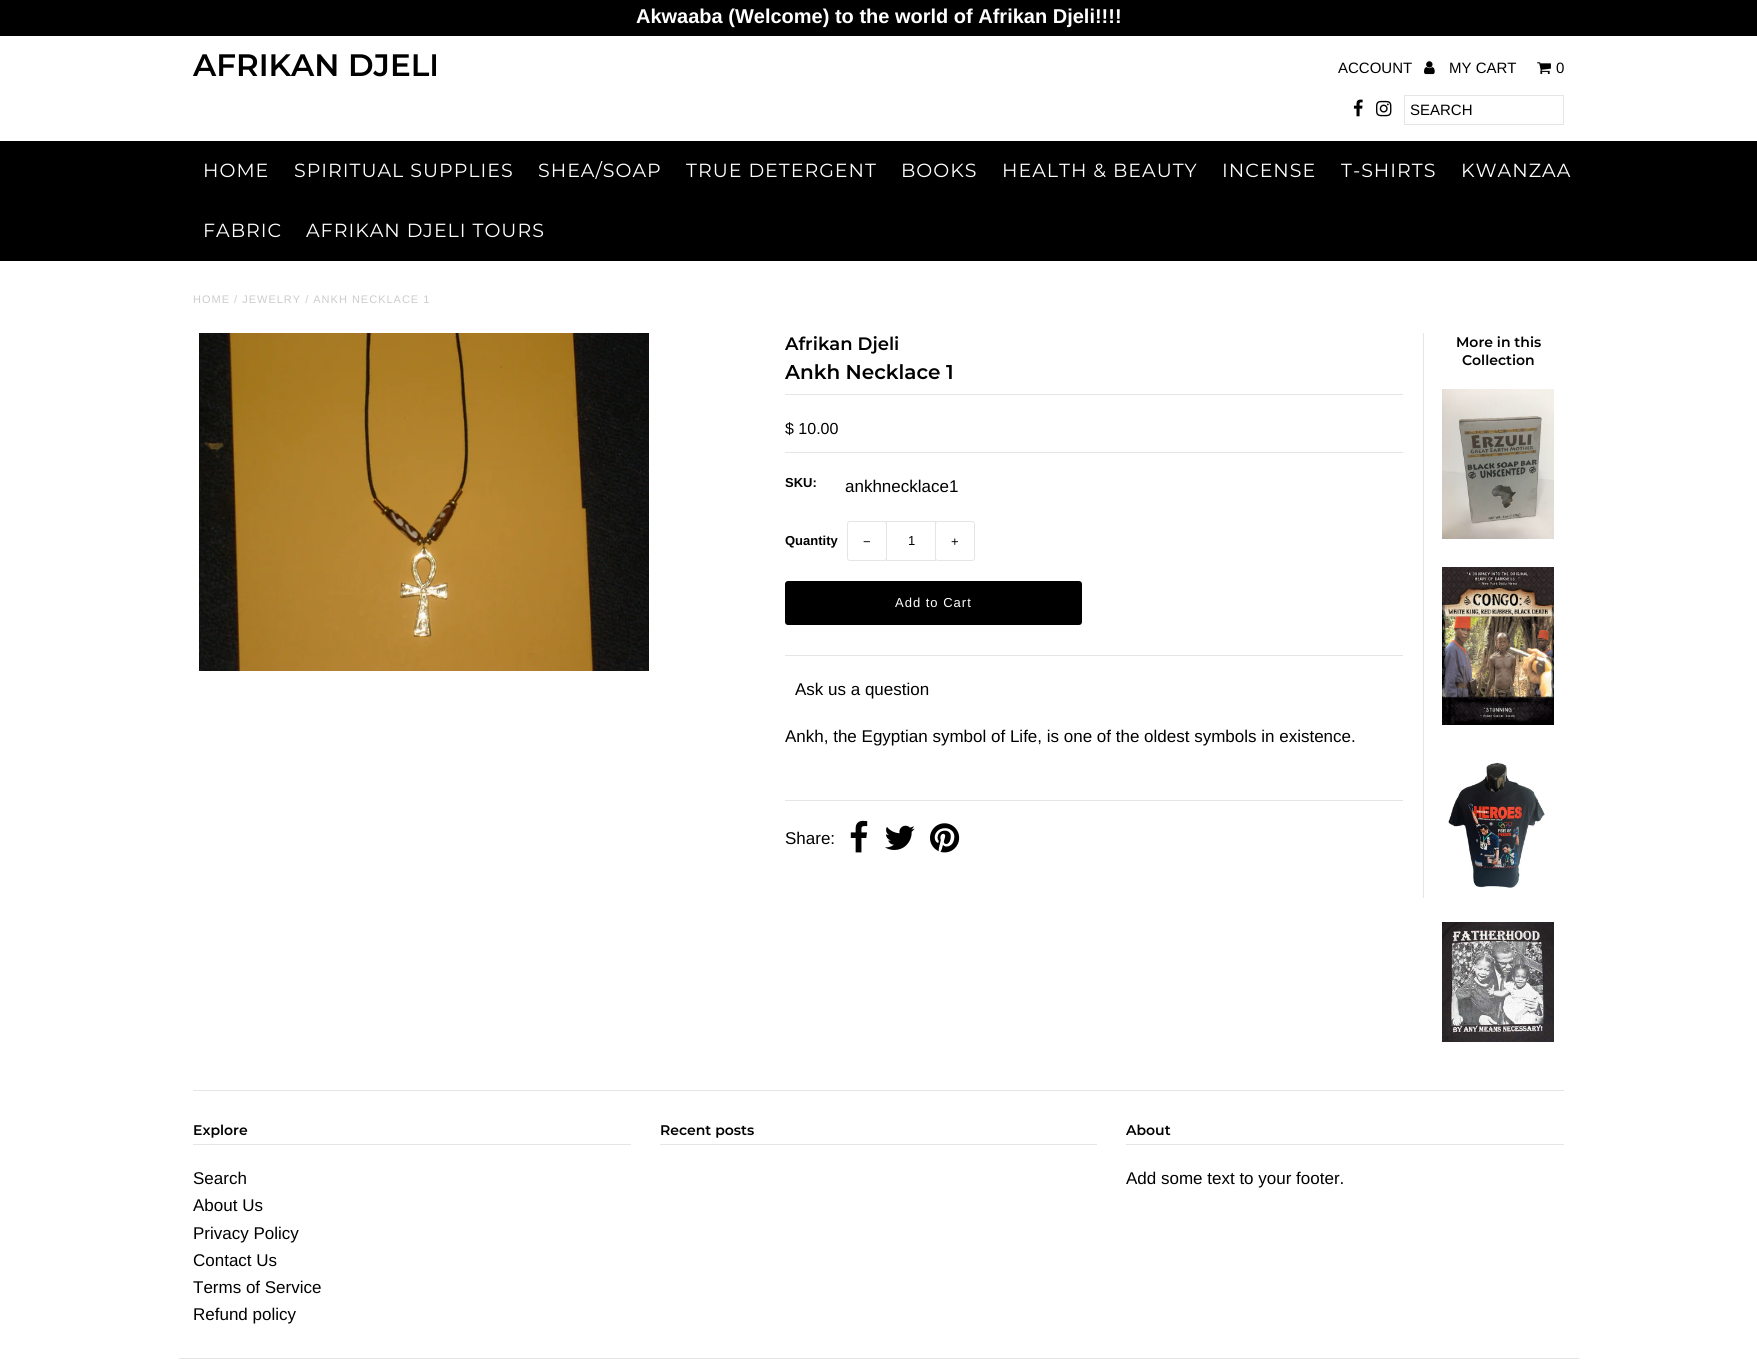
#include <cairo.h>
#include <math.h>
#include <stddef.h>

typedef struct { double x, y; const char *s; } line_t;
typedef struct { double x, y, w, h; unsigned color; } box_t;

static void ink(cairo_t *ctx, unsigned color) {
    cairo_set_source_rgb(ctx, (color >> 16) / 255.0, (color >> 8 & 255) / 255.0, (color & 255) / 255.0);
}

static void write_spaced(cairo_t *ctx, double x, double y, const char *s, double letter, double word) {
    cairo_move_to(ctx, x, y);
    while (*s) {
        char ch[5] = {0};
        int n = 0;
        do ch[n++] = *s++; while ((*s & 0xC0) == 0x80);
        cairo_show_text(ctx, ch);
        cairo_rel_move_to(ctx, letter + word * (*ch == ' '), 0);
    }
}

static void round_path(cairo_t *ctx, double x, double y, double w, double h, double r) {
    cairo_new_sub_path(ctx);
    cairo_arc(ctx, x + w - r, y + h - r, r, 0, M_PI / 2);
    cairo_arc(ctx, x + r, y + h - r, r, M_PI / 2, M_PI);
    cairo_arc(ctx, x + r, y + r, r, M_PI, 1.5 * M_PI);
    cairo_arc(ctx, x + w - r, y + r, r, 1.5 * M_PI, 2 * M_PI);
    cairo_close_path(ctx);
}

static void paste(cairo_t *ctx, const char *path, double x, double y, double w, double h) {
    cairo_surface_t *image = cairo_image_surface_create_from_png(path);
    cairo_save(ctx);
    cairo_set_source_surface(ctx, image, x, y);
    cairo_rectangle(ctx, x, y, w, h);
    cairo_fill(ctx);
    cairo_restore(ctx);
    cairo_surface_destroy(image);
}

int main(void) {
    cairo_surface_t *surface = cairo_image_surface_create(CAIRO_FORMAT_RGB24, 1757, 1361);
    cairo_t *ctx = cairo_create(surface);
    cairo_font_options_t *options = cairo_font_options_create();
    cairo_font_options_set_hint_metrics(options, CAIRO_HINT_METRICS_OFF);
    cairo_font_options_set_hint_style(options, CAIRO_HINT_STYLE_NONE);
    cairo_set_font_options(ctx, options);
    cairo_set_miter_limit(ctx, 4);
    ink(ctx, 0xFFFFFF);
    cairo_paint(ctx);
    ink(ctx, 0x000000);
    cairo_rectangle(ctx, 0, 0, 1757, 36);
    cairo_fill(ctx);
    cairo_select_font_face(ctx, "Liberation Sans", CAIRO_FONT_SLANT_NORMAL, CAIRO_FONT_WEIGHT_BOLD);
    cairo_set_font_size(ctx, 20);
    ink(ctx, 0xFFFFFF);
    cairo_move_to(ctx, 636, 23);
    cairo_show_text(ctx, "Akwaaba (Welcome) to the world of Afrikan Djeli!!!!");
    cairo_select_font_face(ctx, "Montserrat SemiBold", CAIRO_FONT_SLANT_NORMAL, CAIRO_FONT_WEIGHT_NORMAL);
    cairo_set_font_size(ctx, 31);
    ink(ctx, 0x000000);
    cairo_move_to(ctx, 193, 76);
    cairo_show_text(ctx, "AFRIKAN DJELI");
    cairo_select_font_face(ctx, "Liberation Sans", CAIRO_FONT_SLANT_NORMAL, CAIRO_FONT_WEIGHT_NORMAL);
    cairo_set_font_size(ctx, 15);
    cairo_move_to(ctx, 1338, 73);
    cairo_show_text(ctx, "ACCOUNT");
    paste(ctx, "media/1.png", 1424, 61, 11, 14);
    cairo_move_to(ctx, 1449, 73);
    cairo_show_text(ctx, "MY CART");
    paste(ctx, "media/2.png", 1537, 62, 14, 13);
    cairo_move_to(ctx, 1556, 73);
    cairo_show_text(ctx, "0");
    paste(ctx, "media/3.png", 1353, 99, 10, 18);
    paste(ctx, "media/4.png", 1376, 100, 16, 17);
    cairo_rectangle(ctx, 1404.5, 95.5, 159, 29);
    ink(ctx, 0xE5E5E5);
    cairo_set_line_width(ctx, 1);
    cairo_stroke(ctx);
    ink(ctx, 0x000000);
    cairo_move_to(ctx, 1410, 115);
    cairo_show_text(ctx, "SEARCH");
    cairo_rectangle(ctx, 0, 141, 1757, 120);
    cairo_fill(ctx);
    cairo_select_font_face(ctx, "Montserrat", CAIRO_FONT_SLANT_NORMAL, CAIRO_FONT_WEIGHT_NORMAL);
    cairo_set_font_size(ctx, 19);
    ink(ctx, 0xFFFFFF);
    {
        static const line_t items[] = {
            {203, 177, "HOME"},
            {294, 177, "SPIRITUAL SUPPLIES"},
            {538, 177, "SHEA/SOAP"},
            {686, 177, "TRUE DETERGENT"},
            {901, 177, "BOOKS"},
            {1002, 177, "HEALTH & BEAUTY"},
            {1222, 177, "INCENSE"},
            {1341, 177, "T-SHIRTS"},
            {1461, 177, "KWANZAA"},
            {203, 237, "FABRIC"},
            {306, 237, "AFRIKAN DJELI TOURS"},
        };
        for (size_t i = 0; i < sizeof items / sizeof *items; i++) {
            write_spaced(ctx, items[i].x, items[i].y, items[i].s, 1, 0);
        }
    }
    cairo_select_font_face(ctx, "Liberation Sans", CAIRO_FONT_SLANT_NORMAL, CAIRO_FONT_WEIGHT_NORMAL);
    cairo_set_font_size(ctx, 11);
    ink(ctx, 0xCCCCCC);
    write_spaced(ctx, 193, 303, "HOME / JEWELRY / ANKH NECKLACE 1", 1, 0);
    paste(ctx, "media/5.png", 199, 333, 450, 338);
    ink(ctx, 0xE5E5E5);
    cairo_rectangle(ctx, 1423, 333, 1, 565);
    cairo_fill(ctx);
    cairo_select_font_face(ctx, "Montserrat SemiBold", CAIRO_FONT_SLANT_NORMAL, CAIRO_FONT_WEIGHT_NORMAL);
    cairo_set_font_size(ctx, 18);
    ink(ctx, 0x000000);
    cairo_move_to(ctx, 785, 350);
    cairo_show_text(ctx, "Afrikan Djeli");
    cairo_set_font_size(ctx, 20);
    cairo_move_to(ctx, 785, 379);
    cairo_show_text(ctx, "Ankh Necklace 1");
    {
        static const box_t items[] = {
            {785, 394, 618, 1, 0xE5E5E5},
            {785, 655, 618, 1, 0xE5E5E5},
            {785, 452, 618, 1, 0xE5E5E5},
        };
        for (size_t i = 0; i < sizeof items / sizeof *items; i++) {
            ink(ctx, items[i].color);
            cairo_rectangle(ctx, items[i].x, items[i].y, items[i].w, items[i].h);
            cairo_fill(ctx);
        }
    }
    cairo_select_font_face(ctx, "Liberation Sans", CAIRO_FONT_SLANT_NORMAL, CAIRO_FONT_WEIGHT_NORMAL);
    cairo_set_font_size(ctx, 16);
    ink(ctx, 0x000000);
    cairo_move_to(ctx, 785, 434);
    cairo_show_text(ctx, "$ 10.00");
    cairo_select_font_face(ctx, "Liberation Sans", CAIRO_FONT_SLANT_NORMAL, CAIRO_FONT_WEIGHT_BOLD);
    cairo_set_font_size(ctx, 13);
    cairo_move_to(ctx, 785, 487);
    cairo_show_text(ctx, "SKU:");
    cairo_select_font_face(ctx, "Liberation Sans", CAIRO_FONT_SLANT_NORMAL, CAIRO_FONT_WEIGHT_NORMAL);
    cairo_set_font_size(ctx, 17);
    cairo_move_to(ctx, 845, 492);
    cairo_show_text(ctx, "ankhnecklace1");
    cairo_select_font_face(ctx, "Liberation Sans", CAIRO_FONT_SLANT_NORMAL, CAIRO_FONT_WEIGHT_BOLD);
    cairo_set_font_size(ctx, 13);
    cairo_move_to(ctx, 785, 545);
    cairo_show_text(ctx, "Quantity");
    round_path(ctx, 847.5, 521.5, 39, 39, 2.5);
    ink(ctx, 0xE5E5E5);
    cairo_stroke(ctx);
    cairo_select_font_face(ctx, "Liberation Sans", CAIRO_FONT_SLANT_NORMAL, CAIRO_FONT_WEIGHT_NORMAL);
    ink(ctx, 0x000000);
    write_spaced(ctx, 863, 546, "−", 1, 0);
    cairo_rectangle(ctx, 886.5, 521.5, 49, 39);
    ink(ctx, 0xE5E5E5);
    cairo_stroke(ctx);
    ink(ctx, 0x000000);
    cairo_move_to(ctx, 908, 545);
    cairo_show_text(ctx, "1");
    round_path(ctx, 935.5, 521.5, 39, 39, 2.5);
    ink(ctx, 0xE5E5E5);
    cairo_stroke(ctx);
    ink(ctx, 0x000000);
    write_spaced(ctx, 951, 546, "+", 1, 0);
    round_path(ctx, 785, 581, 297, 44, 3);
    cairo_fill(ctx);
    ink(ctx, 0xFFFFFF);
    write_spaced(ctx, 895, 607, "Add to Cart", 1, 0);
    cairo_set_font_size(ctx, 17);
    ink(ctx, 0x000000);
    cairo_move_to(ctx, 795, 695);
    cairo_show_text(ctx, "Ask us a question");
    cairo_move_to(ctx, 785, 742);
    cairo_show_text(ctx, "Ankh, the Egyptian symbol of Life, is one of the oldest symbols in existence.");
    ink(ctx, 0xE5E5E5);
    cairo_rectangle(ctx, 785, 800, 618, 1);
    cairo_fill(ctx);
    ink(ctx, 0x000000);
    cairo_move_to(ctx, 785, 844);
    cairo_show_text(ctx, "Share:");
    paste(ctx, "media/6.png", 850, 820, 18, 33);
    paste(ctx, "media/7.png", 885, 825, 30, 25);
    paste(ctx, "media/8.png", 930, 823, 30, 30);
    cairo_select_font_face(ctx, "Montserrat SemiBold", CAIRO_FONT_SLANT_NORMAL, CAIRO_FONT_WEIGHT_NORMAL);
    cairo_set_font_size(ctx, 14);
    cairo_move_to(ctx, 1456, 347);
    cairo_show_text(ctx, "More in this");
    cairo_move_to(ctx, 1462, 365);
    cairo_show_text(ctx, "Collection");
    paste(ctx, "media/9.png", 1442, 389, 112, 150);
    paste(ctx, "media/10.png", 1442, 567, 112, 158);
    paste(ctx, "media/11.png", 1448, 762, 97, 126);
    paste(ctx, "media/12.png", 1442, 922, 112, 120);
    ink(ctx, 0xE5E5E5);
    cairo_rectangle(ctx, 193, 1090, 1371, 1);
    cairo_fill(ctx);
    cairo_rectangle(ctx, 193, 1144, 438, 1);
    cairo_fill(ctx);
    ink(ctx, 0x000000);
    cairo_move_to(ctx, 193, 1135);
    cairo_show_text(ctx, "Explore");
    cairo_select_font_face(ctx, "Liberation Sans", CAIRO_FONT_SLANT_NORMAL, CAIRO_FONT_WEIGHT_NORMAL);
    cairo_set_font_size(ctx, 17);
    {
        static const line_t items[] = {
            {193, 1184, "Search"},
            {193, 1211, "About Us"},
            {193, 1239, "Privacy Policy"},
            {193, 1266, "Contact Us"},
            {193, 1293, "Terms of Service"},
            {193, 1320, "Refund policy"},
        };
        for (size_t i = 0; i < sizeof items / sizeof *items; i++) {
            cairo_move_to(ctx, items[i].x, items[i].y);
            cairo_show_text(ctx, items[i].s);
        }
    }
    ink(ctx, 0xE5E5E5);
    cairo_rectangle(ctx, 660, 1144, 437, 1);
    cairo_fill(ctx);
    cairo_select_font_face(ctx, "Montserrat SemiBold", CAIRO_FONT_SLANT_NORMAL, CAIRO_FONT_WEIGHT_NORMAL);
    cairo_set_font_size(ctx, 14);
    ink(ctx, 0x000000);
    cairo_move_to(ctx, 660, 1135);
    cairo_show_text(ctx, "Recent posts");
    ink(ctx, 0xE5E5E5);
    cairo_rectangle(ctx, 1126, 1144, 438, 1);
    cairo_fill(ctx);
    ink(ctx, 0x000000);
    cairo_move_to(ctx, 1126, 1135);
    cairo_show_text(ctx, "About");
    cairo_select_font_face(ctx, "Liberation Sans", CAIRO_FONT_SLANT_NORMAL, CAIRO_FONT_WEIGHT_NORMAL);
    cairo_set_font_size(ctx, 17);
    cairo_move_to(ctx, 1126, 1184);
    cairo_show_text(ctx, "Add some text to your footer.");
    ink(ctx, 0xE5E5E5);
    cairo_rectangle(ctx, 179, 1358, 1400, 1);
    cairo_fill(ctx);
    cairo_surface_write_to_png(surface, "image.png");
    cairo_font_options_destroy(options);
    cairo_destroy(ctx);
    cairo_surface_destroy(surface);
    return 0;
}
